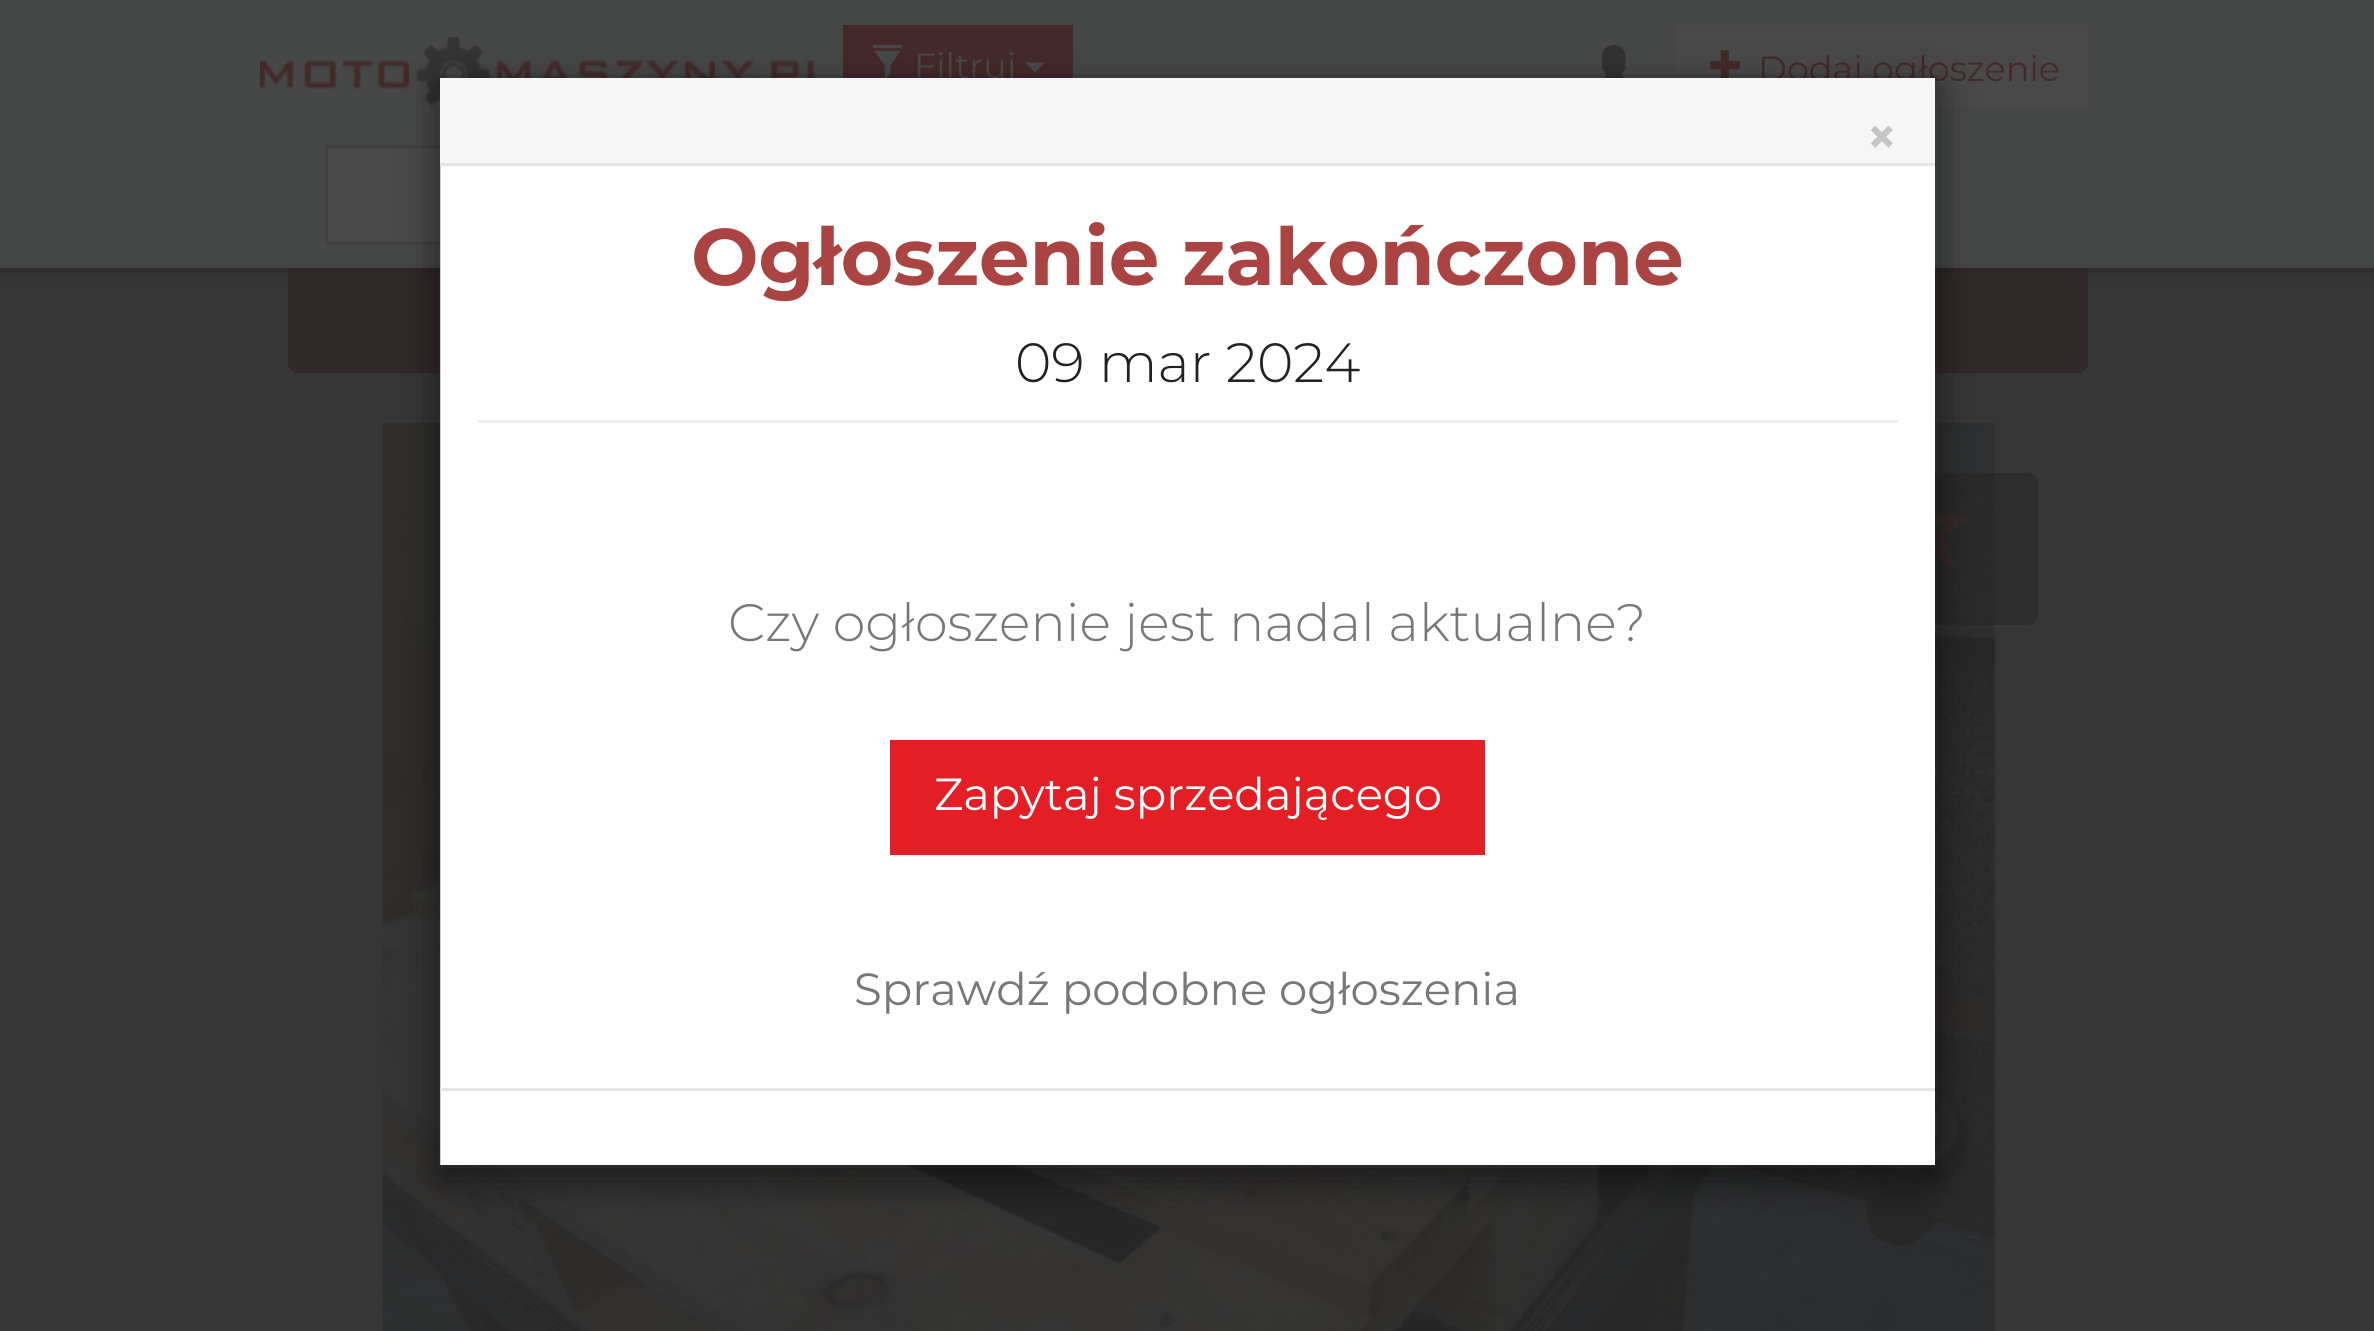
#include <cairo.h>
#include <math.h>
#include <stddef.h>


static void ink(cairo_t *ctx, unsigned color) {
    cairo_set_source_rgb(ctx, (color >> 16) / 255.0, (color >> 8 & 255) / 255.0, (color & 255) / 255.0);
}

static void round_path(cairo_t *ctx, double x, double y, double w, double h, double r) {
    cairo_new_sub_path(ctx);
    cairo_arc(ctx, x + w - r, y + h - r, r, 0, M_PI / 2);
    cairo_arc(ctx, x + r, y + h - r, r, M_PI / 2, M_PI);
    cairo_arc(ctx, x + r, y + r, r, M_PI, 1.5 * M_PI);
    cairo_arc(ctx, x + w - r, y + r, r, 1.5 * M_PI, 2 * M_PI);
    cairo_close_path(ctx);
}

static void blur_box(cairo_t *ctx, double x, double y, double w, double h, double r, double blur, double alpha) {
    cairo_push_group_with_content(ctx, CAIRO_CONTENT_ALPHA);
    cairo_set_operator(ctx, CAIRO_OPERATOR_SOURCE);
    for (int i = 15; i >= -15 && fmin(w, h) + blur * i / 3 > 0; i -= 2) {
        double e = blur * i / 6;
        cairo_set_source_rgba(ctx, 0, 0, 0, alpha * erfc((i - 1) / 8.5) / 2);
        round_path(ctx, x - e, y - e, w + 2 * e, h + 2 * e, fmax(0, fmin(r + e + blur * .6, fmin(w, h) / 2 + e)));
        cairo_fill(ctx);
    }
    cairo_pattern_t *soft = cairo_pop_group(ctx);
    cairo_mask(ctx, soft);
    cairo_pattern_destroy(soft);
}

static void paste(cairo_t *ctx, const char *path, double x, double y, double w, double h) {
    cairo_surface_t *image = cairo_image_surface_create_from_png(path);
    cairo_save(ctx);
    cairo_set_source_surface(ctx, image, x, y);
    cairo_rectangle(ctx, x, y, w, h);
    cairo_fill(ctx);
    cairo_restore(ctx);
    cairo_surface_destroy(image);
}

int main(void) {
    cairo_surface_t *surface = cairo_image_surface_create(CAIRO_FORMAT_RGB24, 2374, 1331);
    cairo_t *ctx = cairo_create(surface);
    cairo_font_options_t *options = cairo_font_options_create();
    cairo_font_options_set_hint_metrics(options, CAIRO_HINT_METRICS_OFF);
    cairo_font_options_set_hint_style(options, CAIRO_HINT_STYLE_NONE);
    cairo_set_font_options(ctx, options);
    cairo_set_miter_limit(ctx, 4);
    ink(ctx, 0x363636);
    cairo_paint(ctx);
    ink(ctx, 0x312929);
    round_path(ctx, 289.5, 254.5, 1797, 117, 8.5);
    cairo_fill_preserve(ctx);
    cairo_set_line_width(ctx, 3);
    cairo_stroke(ctx);
    ink(ctx, 0x252525);
    blur_box(ctx, -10, -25, 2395, 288, 0, 12.5, 1);
    ink(ctx, 0x464747);
    cairo_rectangle(ctx, 0, 0, 2374, 265);
    cairo_fill(ctx);
    ink(ctx, 0x444444);
    cairo_rectangle(ctx, 0, 265, 2374, 3);
    cairo_fill(ctx);
    paste(ctx, "media/1.png", 260, 37, 556, 70);
    ink(ctx, 0x45292A);
    cairo_rectangle(ctx, 843, 25, 230, 53);
    cairo_fill(ctx);
    paste(ctx, "media/2.png", 872, 45, 31, 33);
    cairo_select_font_face(ctx, "Montserrat", CAIRO_FONT_SLANT_NORMAL, CAIRO_FONT_WEIGHT_NORMAL);
    cairo_set_font_size(ctx, 35);
    ink(ctx, 0x494949);
    cairo_move_to(ctx, 914, 78);
    cairo_show_text(ctx, "Filtruj");
    cairo_new_path(ctx);
    cairo_move_to(ctx, 1025, 62.5);
    cairo_line_to(ctx, 1045, 62.5);
    cairo_line_to(ctx, 1035, 72.5);
    cairo_close_path(ctx);
    cairo_fill(ctx);
    cairo_rectangle(ctx, 328, 148, 112, 94);
    cairo_fill(ctx);
    cairo_rectangle(ctx, 326.5, 146.5, 1072, 97);
    ink(ctx, 0x414141);
    cairo_stroke(ctx);
    paste(ctx, "media/3.png", 1601, 45, 25, 33);
    ink(ctx, 0x494949);
    cairo_rectangle(ctx, 1675, 25, 413, 83);
    cairo_fill(ctx);
    paste(ctx, "media/4.png", 1710, 50, 30, 28);
    ink(ctx, 0x45292A);
    cairo_move_to(ctx, 1758, 81);
    cairo_show_text(ctx, "Dodaj ogłoszenie");
    paste(ctx, "media/5.png", 382, 422, 1614, 909);
    cairo_set_source_rgba(ctx, 0.145, 0.145, 0.145, 0.5);
    round_path(ctx, 1823, 473, 215, 152, 10);
    cairo_fill(ctx);
    paste(ctx, "media/6.png", 1935, 507, 37, 61);
    cairo_save(ctx);
    cairo_set_fill_rule(ctx, CAIRO_FILL_RULE_EVEN_ODD);
    cairo_new_path(ctx);
    cairo_move_to(ctx, 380, 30);
    cairo_line_to(ctx, 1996, 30);
    cairo_line_to(ctx, 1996, 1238);
    cairo_line_to(ctx, 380, 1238);
    cairo_close_path(ctx);
    cairo_move_to(ctx, 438, 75);
    cairo_line_to(ctx, 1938, 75);
    cairo_line_to(ctx, 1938, 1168);
    cairo_line_to(ctx, 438, 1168);
    cairo_close_path(ctx);
    cairo_clip(ctx);
    ink(ctx, 0x000000);
    blur_box(ctx, 438, 88, 1500, 1092, 0, 19, 0.5);
    cairo_restore(ctx);
    ink(ctx, 0xFFFFFF);
    cairo_rectangle(ctx, 440, 166, 1495, 999);
    cairo_fill(ctx);
    cairo_rectangle(ctx, 439.5, 76.5, 1497, 1090);
    cairo_set_source_rgba(ctx, 0, 0, 0, 0.2);
    cairo_stroke(ctx);
    ink(ctx, 0xF6F6F6);
    cairo_rectangle(ctx, 440, 78, 1495, 85);
    cairo_fill(ctx);
    ink(ctx, 0xE5E5E5);
    cairo_rectangle(ctx, 440, 163, 1495, 3);
    cairo_fill(ctx);
    cairo_select_font_face(ctx, "Montserrat", CAIRO_FONT_SLANT_NORMAL, CAIRO_FONT_WEIGHT_BOLD);
    cairo_set_font_size(ctx, 52.5);
    ink(ctx, 0xC5C5C5);
    cairo_move_to(ctx, 1866, 155);
    cairo_show_text(ctx, "×");
    cairo_set_font_size(ctx, 80);
    ink(ctx, 0xA94442);
    cairo_move_to(ctx, 691, 285);
    cairo_show_text(ctx, "Ogłoszenie zakończone");
    cairo_select_font_face(ctx, "Montserrat Light", CAIRO_FONT_SLANT_NORMAL, CAIRO_FONT_WEIGHT_NORMAL);
    cairo_set_font_size(ctx, 55.25);
    ink(ctx, 0x222222);
    cairo_move_to(ctx, 1015, 382);
    cairo_show_text(ctx, "09 mar 2024");
    ink(ctx, 0xEEEEEE);
    cairo_rectangle(ctx, 478, 420, 1420, 3);
    cairo_fill(ctx);
    cairo_set_font_size(ctx, 52.5);
    ink(ctx, 0x777777);
    cairo_move_to(ctx, 728, 641);
    cairo_show_text(ctx, "Czy ogłoszenie jest nadal aktualne?");
    ink(ctx, 0xE31E24);
    cairo_rectangle(ctx, 890, 740, 595, 115);
    cairo_fill(ctx);
    cairo_select_font_face(ctx, "Montserrat", CAIRO_FONT_SLANT_NORMAL, CAIRO_FONT_WEIGHT_NORMAL);
    cairo_set_font_size(ctx, 45);
    ink(ctx, 0xFFFFFF);
    cairo_move_to(ctx, 934, 810);
    cairo_show_text(ctx, "Zapytaj sprzedającego");
    ink(ctx, 0x777777);
    cairo_move_to(ctx, 854, 1005);
    cairo_show_text(ctx, "Sprawdź podobne ogłoszenia");
    ink(ctx, 0xE5E5E5);
    cairo_rectangle(ctx, 440, 1088, 1495, 3);
    cairo_fill(ctx);
    cairo_surface_write_to_png(surface, "image.png");
    cairo_font_options_destroy(options);
    cairo_destroy(ctx);
    cairo_surface_destroy(surface);
    return 0;
}
